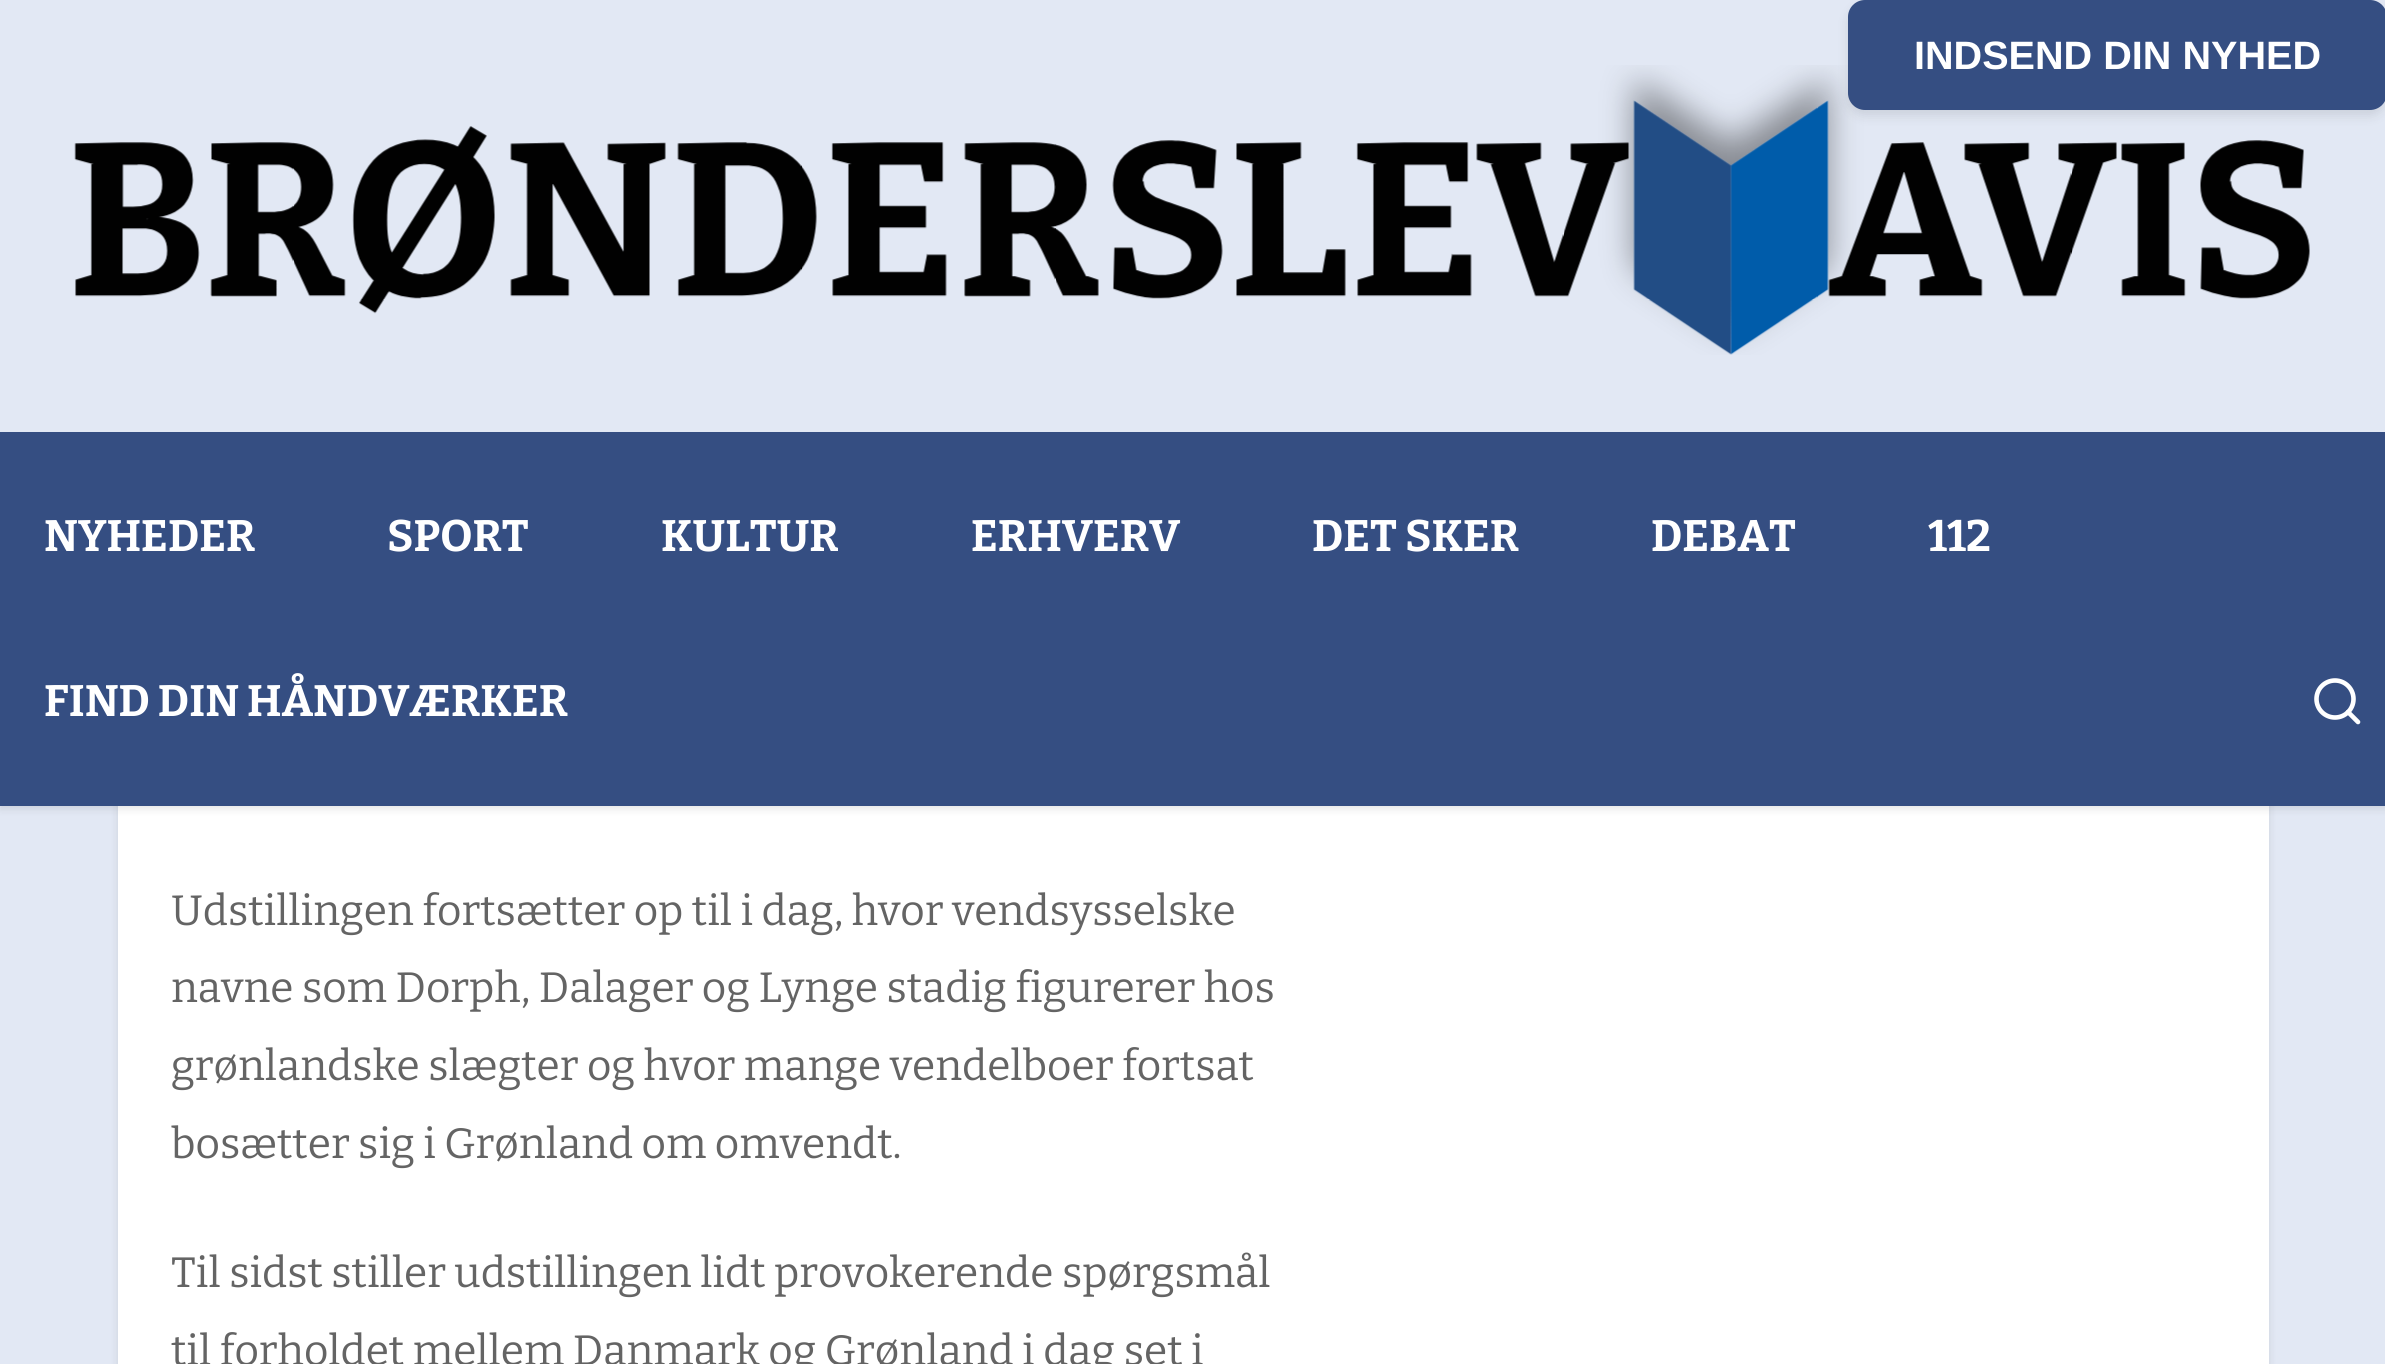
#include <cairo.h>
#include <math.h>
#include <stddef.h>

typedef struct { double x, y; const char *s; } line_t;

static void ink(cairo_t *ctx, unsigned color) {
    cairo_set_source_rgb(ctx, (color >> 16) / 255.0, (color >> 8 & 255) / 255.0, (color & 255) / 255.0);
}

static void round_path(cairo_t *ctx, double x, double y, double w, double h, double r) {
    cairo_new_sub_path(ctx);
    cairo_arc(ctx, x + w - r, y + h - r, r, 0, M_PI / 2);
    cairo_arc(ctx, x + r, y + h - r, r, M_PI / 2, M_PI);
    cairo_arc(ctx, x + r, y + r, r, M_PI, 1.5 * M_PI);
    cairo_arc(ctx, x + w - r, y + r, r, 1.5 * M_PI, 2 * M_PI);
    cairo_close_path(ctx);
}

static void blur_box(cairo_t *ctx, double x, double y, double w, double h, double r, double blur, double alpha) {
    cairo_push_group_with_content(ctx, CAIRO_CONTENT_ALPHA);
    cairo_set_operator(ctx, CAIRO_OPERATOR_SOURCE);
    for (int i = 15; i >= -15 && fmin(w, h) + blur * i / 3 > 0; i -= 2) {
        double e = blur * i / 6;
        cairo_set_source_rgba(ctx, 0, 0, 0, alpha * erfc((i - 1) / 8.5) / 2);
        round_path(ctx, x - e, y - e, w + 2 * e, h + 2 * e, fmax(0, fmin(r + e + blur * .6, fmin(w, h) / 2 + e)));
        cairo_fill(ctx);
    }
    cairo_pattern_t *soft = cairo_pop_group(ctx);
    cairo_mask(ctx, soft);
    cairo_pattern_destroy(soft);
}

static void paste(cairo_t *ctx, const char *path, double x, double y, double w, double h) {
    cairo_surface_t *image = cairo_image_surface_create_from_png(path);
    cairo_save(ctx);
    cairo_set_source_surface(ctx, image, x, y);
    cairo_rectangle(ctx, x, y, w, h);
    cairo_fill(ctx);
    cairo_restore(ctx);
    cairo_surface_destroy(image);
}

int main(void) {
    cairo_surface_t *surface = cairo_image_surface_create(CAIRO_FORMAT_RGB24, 2385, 1364);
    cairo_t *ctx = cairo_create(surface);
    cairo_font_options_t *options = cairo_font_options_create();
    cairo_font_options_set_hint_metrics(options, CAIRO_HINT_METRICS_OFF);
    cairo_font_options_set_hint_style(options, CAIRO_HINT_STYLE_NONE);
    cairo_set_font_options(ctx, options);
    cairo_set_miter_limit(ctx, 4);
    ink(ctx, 0xE2E8F4);
    cairo_paint(ctx);
    ink(ctx, 0x000000);
    blur_box(ctx, 118, -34, 2151, 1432, 22, 4, 0.1);
    ink(ctx, 0xFFFFFF);
    cairo_rectangle(ctx, 118, 806, 2151, 558);
    cairo_fill(ctx);
    ink(ctx, 0x000000);
    blur_box(ctx, 0, 3, 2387, 806, 0, 4, 0.1);
    ink(ctx, 0xE2E8F4);
    cairo_rectangle(ctx, 0, 0, 2385, 432);
    cairo_fill(ctx);
    paste(ctx, "media/1.png", 74, 65, 2236, 290);
    ink(ctx, 0x000000);
    blur_box(ctx, 1848, 6, 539, 110, 17, 5.5, 0.1);
    ink(ctx, 0x354E82);
    round_path(ctx, 1848, 0, 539, 110, 17);
    cairo_fill(ctx);
    cairo_select_font_face(ctx, "Liberation Sans", CAIRO_FONT_SLANT_NORMAL, CAIRO_FONT_WEIGHT_BOLD);
    cairo_set_font_size(ctx, 39.6);
    ink(ctx, 0xFFFFFF);
    cairo_move_to(ctx, 1914, 69);
    cairo_show_text(ctx, "INDSEND DIN NYHED");
    ink(ctx, 0x354E82);
    cairo_rectangle(ctx, 0, 432, 2385, 374);
    cairo_fill(ctx);
    cairo_select_font_face(ctx, "Bitter", CAIRO_FONT_SLANT_NORMAL, CAIRO_FONT_WEIGHT_BOLD);
    cairo_set_font_size(ctx, 44);
    ink(ctx, 0xFFFFFF);
    {
        static const line_t items[] = {
            {44, 551, "NYHEDER"},
            {387, 551, "SPORT"},
            {661, 551, "KULTUR"},
            {971, 551, "ERHVERV"},
            {1312, 551, "DET SKER"},
            {1651, 551, "DEBAT"},
            {1928, 551, "112"},
            {44, 716, "FIND DIN HÅNDVÆRKER"},
        };
        for (size_t i = 0; i < sizeof items / sizeof *items; i++) {
            cairo_move_to(ctx, items[i].x, items[i].y);
            cairo_show_text(ctx, items[i].s);
        }
    }
    cairo_new_path(ctx);
    cairo_arc(ctx, 2335, 699, 18.5, 0, 2 * M_PI);
    cairo_set_line_width(ctx, 4.6);
    cairo_stroke(ctx);
    cairo_new_path(ctx);
    cairo_move_to(ctx, 2358, 722);
    cairo_line_to(ctx, 2348, 712);
    cairo_set_line_cap(ctx, CAIRO_LINE_CAP_ROUND);
    cairo_set_line_join(ctx, CAIRO_LINE_JOIN_ROUND);
    cairo_stroke(ctx);
    cairo_select_font_face(ctx, "Bitter", CAIRO_FONT_SLANT_NORMAL, CAIRO_FONT_WEIGHT_NORMAL);
    cairo_set_font_size(ctx, 42.4);
    ink(ctx, 0x646464);
    {
        static const line_t items[] = {
            {171, 925, "Udstillingen fortsætter op til i dag, hvor vendsysselske"},
            {171, 1002, "navne som Dorph, Dalager og Lynge stadig figurerer hos"},
            {171, 1080, "grønlandske slægter og hvor mange vendelboer fortsat"},
            {171, 1158, "bosætter sig i Grønland om omvendt."},
            {171, 1287, "Til sidst stiller udstillingen lidt provokerende spørgsmål"},
            {171, 1365, "til forholdet mellem Danmark og Grønland i dag set i"},
        };
        for (size_t i = 0; i < sizeof items / sizeof *items; i++) {
            cairo_move_to(ctx, items[i].x, items[i].y);
            cairo_show_text(ctx, items[i].s);
        }
    }
    cairo_surface_write_to_png(surface, "image.png");
    cairo_font_options_destroy(options);
    cairo_destroy(ctx);
    cairo_surface_destroy(surface);
    return 0;
}
